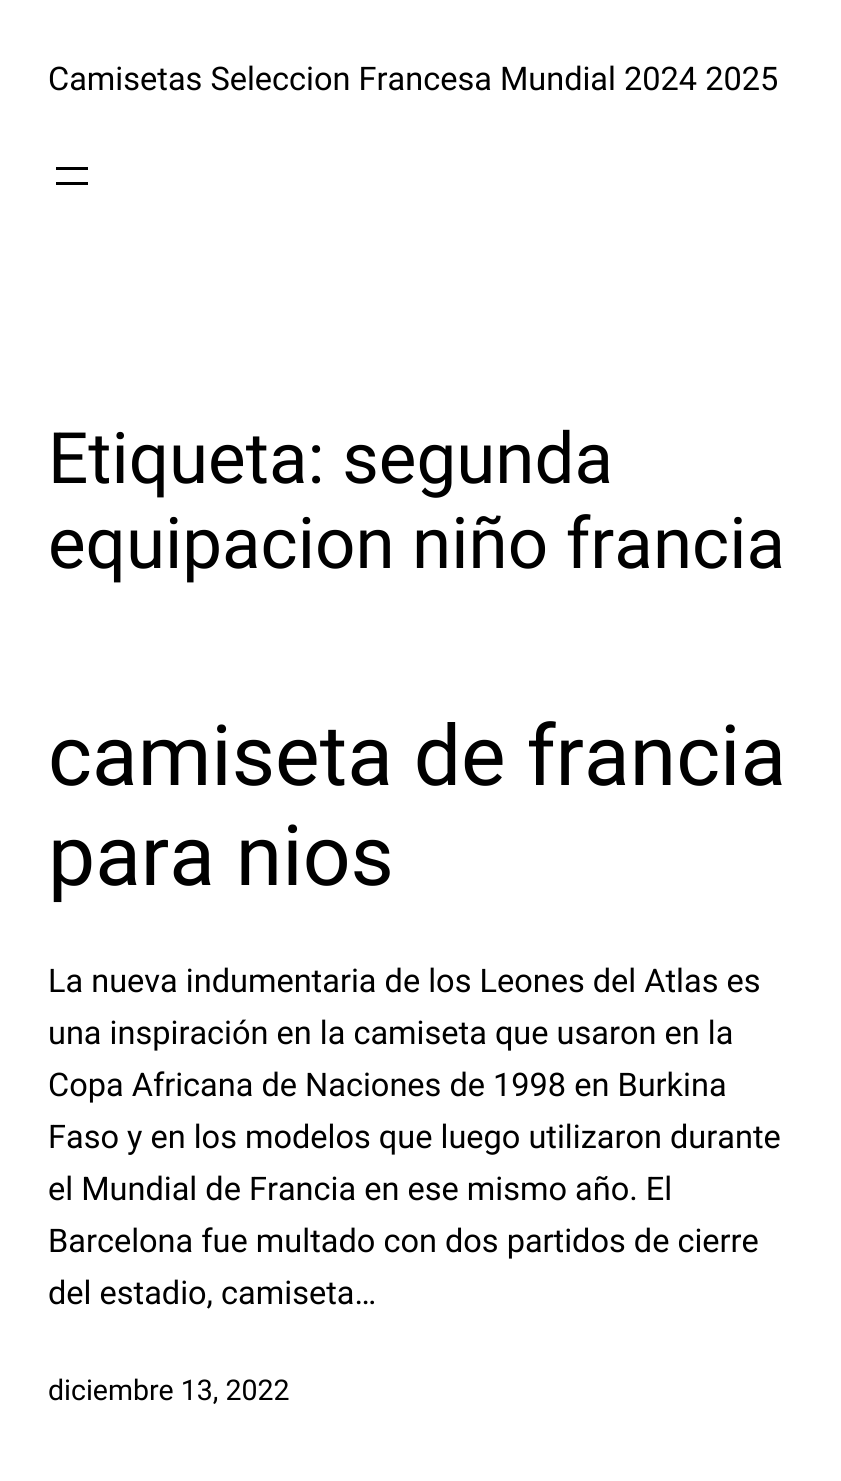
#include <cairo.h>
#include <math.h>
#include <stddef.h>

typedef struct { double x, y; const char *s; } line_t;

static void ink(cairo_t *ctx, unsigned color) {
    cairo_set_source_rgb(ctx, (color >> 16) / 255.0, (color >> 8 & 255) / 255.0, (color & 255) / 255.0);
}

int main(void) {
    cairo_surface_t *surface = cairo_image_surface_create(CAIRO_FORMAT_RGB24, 841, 1481);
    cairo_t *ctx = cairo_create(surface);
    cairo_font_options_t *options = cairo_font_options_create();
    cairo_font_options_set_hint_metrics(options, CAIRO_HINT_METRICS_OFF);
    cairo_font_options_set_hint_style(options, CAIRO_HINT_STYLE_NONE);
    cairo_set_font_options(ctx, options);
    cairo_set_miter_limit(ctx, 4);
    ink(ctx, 0xFFFFFF);
    cairo_paint(ctx);
    cairo_select_font_face(ctx, "Roboto", CAIRO_FONT_SLANT_NORMAL, CAIRO_FONT_WEIGHT_NORMAL);
    cairo_set_font_size(ctx, 32.5);
    ink(ctx, 0x000000);
    cairo_move_to(ctx, 48, 90);
    cairo_show_text(ctx, "Camisetas Seleccion Francesa Mundial 2024 2025");
    cairo_rectangle(ctx, 56, 167, 32, 3);
    cairo_fill(ctx);
    cairo_rectangle(ctx, 56, 182, 32, 3);
    cairo_fill(ctx);
    cairo_set_font_size(ctx, 70.9);
    cairo_move_to(ctx, 48, 483);
    cairo_show_text(ctx, "Etiqueta: segunda");
    cairo_move_to(ctx, 48, 568);
    cairo_show_text(ctx, "equipacion niño francia");
    cairo_set_font_size(ctx, 84);
    cairo_move_to(ctx, 48, 785);
    cairo_show_text(ctx, "camiseta de francia");
    cairo_move_to(ctx, 48, 885);
    cairo_show_text(ctx, "para nios");
    cairo_set_font_size(ctx, 32.5);
    {
        static const line_t items[] = {
            {48, 992, "La nueva indumentaria de los Leones del Atlas es"},
            {48, 1044, "una inspiración en la camiseta que usaron en la"},
            {48, 1096, "Copa Africana de Naciones de 1998 en Burkina"},
            {48, 1148, "Faso y en los modelos que luego utilizaron durante"},
            {48, 1200, "el Mundial de Francia en ese mismo año. El"},
            {48, 1252, "Barcelona fue multado con dos partidos de cierre"},
            {48, 1304, "del estadio, camiseta…"},
        };
        for (size_t i = 0; i < sizeof items / sizeof *items; i++) {
            cairo_move_to(ctx, items[i].x, items[i].y);
            cairo_show_text(ctx, items[i].s);
        }
    }
    cairo_set_font_size(ctx, 28.5);
    cairo_move_to(ctx, 48, 1400);
    cairo_show_text(ctx, "diciembre 13, 2022");
    cairo_surface_write_to_png(surface, "image.png");
    cairo_font_options_destroy(options);
    cairo_destroy(ctx);
    cairo_surface_destroy(surface);
    return 0;
}
